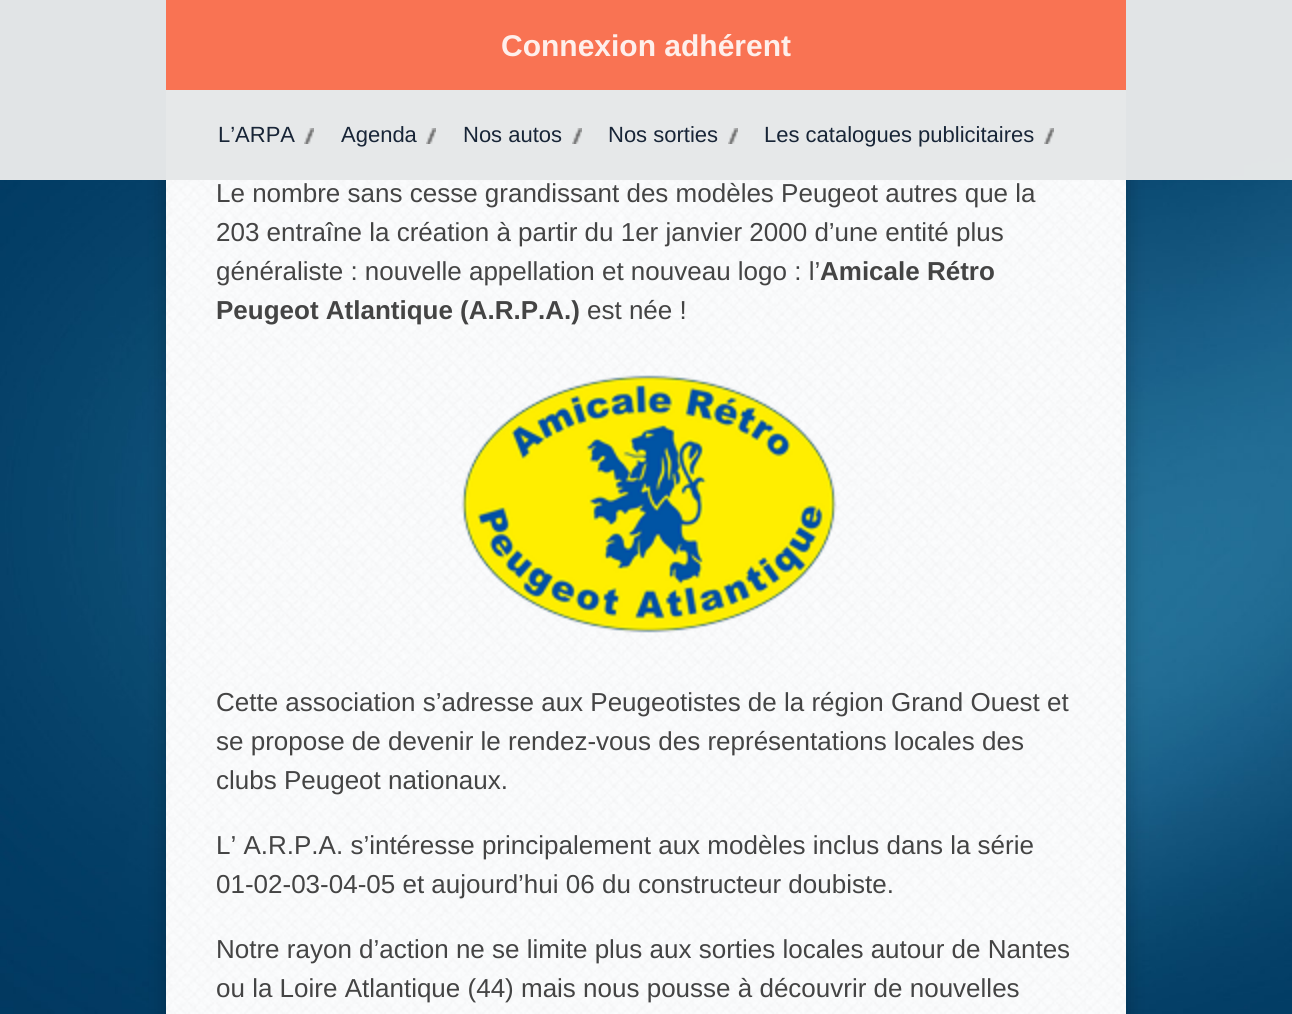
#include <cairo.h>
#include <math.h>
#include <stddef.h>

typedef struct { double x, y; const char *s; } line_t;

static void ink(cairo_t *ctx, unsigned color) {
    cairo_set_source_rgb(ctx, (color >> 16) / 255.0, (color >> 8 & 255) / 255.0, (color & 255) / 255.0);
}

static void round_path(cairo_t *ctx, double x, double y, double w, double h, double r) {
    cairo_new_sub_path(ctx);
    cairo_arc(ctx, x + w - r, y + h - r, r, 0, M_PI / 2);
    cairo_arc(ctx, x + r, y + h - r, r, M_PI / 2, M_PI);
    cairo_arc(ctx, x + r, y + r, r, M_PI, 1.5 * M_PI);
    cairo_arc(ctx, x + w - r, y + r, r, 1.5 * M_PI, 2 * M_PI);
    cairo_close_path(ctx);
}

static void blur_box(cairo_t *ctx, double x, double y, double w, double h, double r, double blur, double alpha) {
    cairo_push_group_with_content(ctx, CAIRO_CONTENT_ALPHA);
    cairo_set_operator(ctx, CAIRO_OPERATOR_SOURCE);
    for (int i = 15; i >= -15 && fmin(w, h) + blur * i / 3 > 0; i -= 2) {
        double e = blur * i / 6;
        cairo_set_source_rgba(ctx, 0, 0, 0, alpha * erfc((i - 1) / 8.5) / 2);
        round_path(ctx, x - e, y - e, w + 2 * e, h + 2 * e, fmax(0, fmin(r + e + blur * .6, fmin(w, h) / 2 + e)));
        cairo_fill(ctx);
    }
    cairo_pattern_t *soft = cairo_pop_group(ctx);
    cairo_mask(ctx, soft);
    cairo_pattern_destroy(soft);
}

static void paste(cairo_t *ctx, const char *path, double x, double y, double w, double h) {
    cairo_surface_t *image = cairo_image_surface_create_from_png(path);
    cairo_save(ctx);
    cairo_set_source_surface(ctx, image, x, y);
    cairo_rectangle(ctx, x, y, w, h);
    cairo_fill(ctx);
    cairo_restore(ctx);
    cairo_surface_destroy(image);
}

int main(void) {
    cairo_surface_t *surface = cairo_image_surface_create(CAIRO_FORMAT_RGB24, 1292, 1014);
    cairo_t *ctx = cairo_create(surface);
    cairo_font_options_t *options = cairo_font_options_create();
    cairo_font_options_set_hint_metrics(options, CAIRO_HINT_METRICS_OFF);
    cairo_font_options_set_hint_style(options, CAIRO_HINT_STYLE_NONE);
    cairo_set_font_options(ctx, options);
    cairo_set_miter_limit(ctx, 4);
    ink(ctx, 0xFFFFFF);
    cairo_paint(ctx);
    paste(ctx, "media/1.png", 0, 0, 1292, 1014);
    ink(ctx, 0x000000);
    blur_box(ctx, 166, -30, 960, 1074, 0, 10, 0.25);
    paste(ctx, "media/7.png", 166, 0, 960, 1014);
    cairo_set_source_rgba(ctx, 0.898, 0.906, 0.91, 0.98);
    cairo_rectangle(ctx, 0, 0, 1292, 180);
    cairo_fill(ctx);
    cairo_set_source_rgba(ctx, 0.988, 0.392, 0.251, 0.88);
    cairo_rectangle(ctx, 166, 0, 960, 90);
    cairo_fill(ctx);
    cairo_select_font_face(ctx, "Liberation Sans", CAIRO_FONT_SLANT_NORMAL, CAIRO_FONT_WEIGHT_BOLD);
    cairo_set_font_size(ctx, 30);
    ink(ctx, 0xFEEFEB);
    cairo_move_to(ctx, 501, 56);
    cairo_show_text(ctx, "Connexion adhérent");
    paste(ctx, "media/2.png", 304, 128, 10, 16);
    cairo_select_font_face(ctx, "Liberation Sans", CAIRO_FONT_SLANT_NORMAL, CAIRO_FONT_WEIGHT_NORMAL);
    cairo_set_font_size(ctx, 22);
    ink(ctx, 0x182537);
    cairo_move_to(ctx, 218, 142);
    cairo_show_text(ctx, "L’ARPA");
    paste(ctx, "media/3.png", 426, 128, 10, 16);
    cairo_move_to(ctx, 341, 142);
    cairo_show_text(ctx, "Agenda");
    paste(ctx, "media/4.png", 572, 128, 10, 16);
    cairo_move_to(ctx, 463, 142);
    cairo_show_text(ctx, "Nos autos");
    paste(ctx, "media/5.png", 728, 128, 10, 16);
    cairo_move_to(ctx, 608, 142);
    cairo_show_text(ctx, "Nos sorties");
    paste(ctx, "media/6.png", 1044, 128, 10, 16);
    cairo_move_to(ctx, 764, 142);
    cairo_show_text(ctx, "Les catalogues publicitaires");
    cairo_set_font_size(ctx, 26);
    ink(ctx, 0x444444);
    {
        static const line_t items[] = {
            {216, 202, "Le nombre sans cesse grandissant des modèles Peugeot autres que la"},
            {216, 241, "203 entraîne la création à partir du 1er janvier 2000 d’une entité plus"},
            {216, 280, "généraliste : nouvelle appellation et nouveau logo : l’"},
        };
        for (size_t i = 0; i < sizeof items / sizeof *items; i++) {
            cairo_move_to(ctx, items[i].x, items[i].y);
            cairo_show_text(ctx, items[i].s);
        }
    }
    cairo_select_font_face(ctx, "Liberation Sans", CAIRO_FONT_SLANT_NORMAL, CAIRO_FONT_WEIGHT_BOLD);
    cairo_move_to(ctx, 820, 280);
    cairo_show_text(ctx, "Amicale Rétro");
    cairo_move_to(ctx, 216, 319);
    cairo_show_text(ctx, "Peugeot Atlantique (A.R.P.A.)");
    cairo_select_font_face(ctx, "Liberation Sans", CAIRO_FONT_SLANT_NORMAL, CAIRO_FONT_WEIGHT_NORMAL);
    cairo_move_to(ctx, 587, 319);
    cairo_show_text(ctx, "est née !");
    paste(ctx, "media/8.png", 461, 375, 376, 258);
    {
        static const line_t items[] = {
            {216, 711, "Cette association s’adresse aux Peugeotistes de la région Grand Ouest et"},
            {216, 750, "se propose de devenir le rendez-vous des représentations locales des"},
            {216, 789, "clubs Peugeot nationaux."},
            {216, 854, "L’ A.R.P.A. s’intéresse principalement aux modèles inclus dans la série"},
            {216, 893, "01-02-03-04-05 et aujourd’hui 06 du constructeur doubiste."},
            {216, 958, "Notre rayon d’action ne se limite plus aux sorties locales autour de Nantes"},
            {216, 997, "ou la Loire Atlantique (44) mais nous pousse à découvrir de nouvelles"},
        };
        for (size_t i = 0; i < sizeof items / sizeof *items; i++) {
            cairo_move_to(ctx, items[i].x, items[i].y);
            cairo_show_text(ctx, items[i].s);
        }
    }
    cairo_surface_write_to_png(surface, "image.png");
    cairo_font_options_destroy(options);
    cairo_destroy(ctx);
    cairo_surface_destroy(surface);
    return 0;
}
